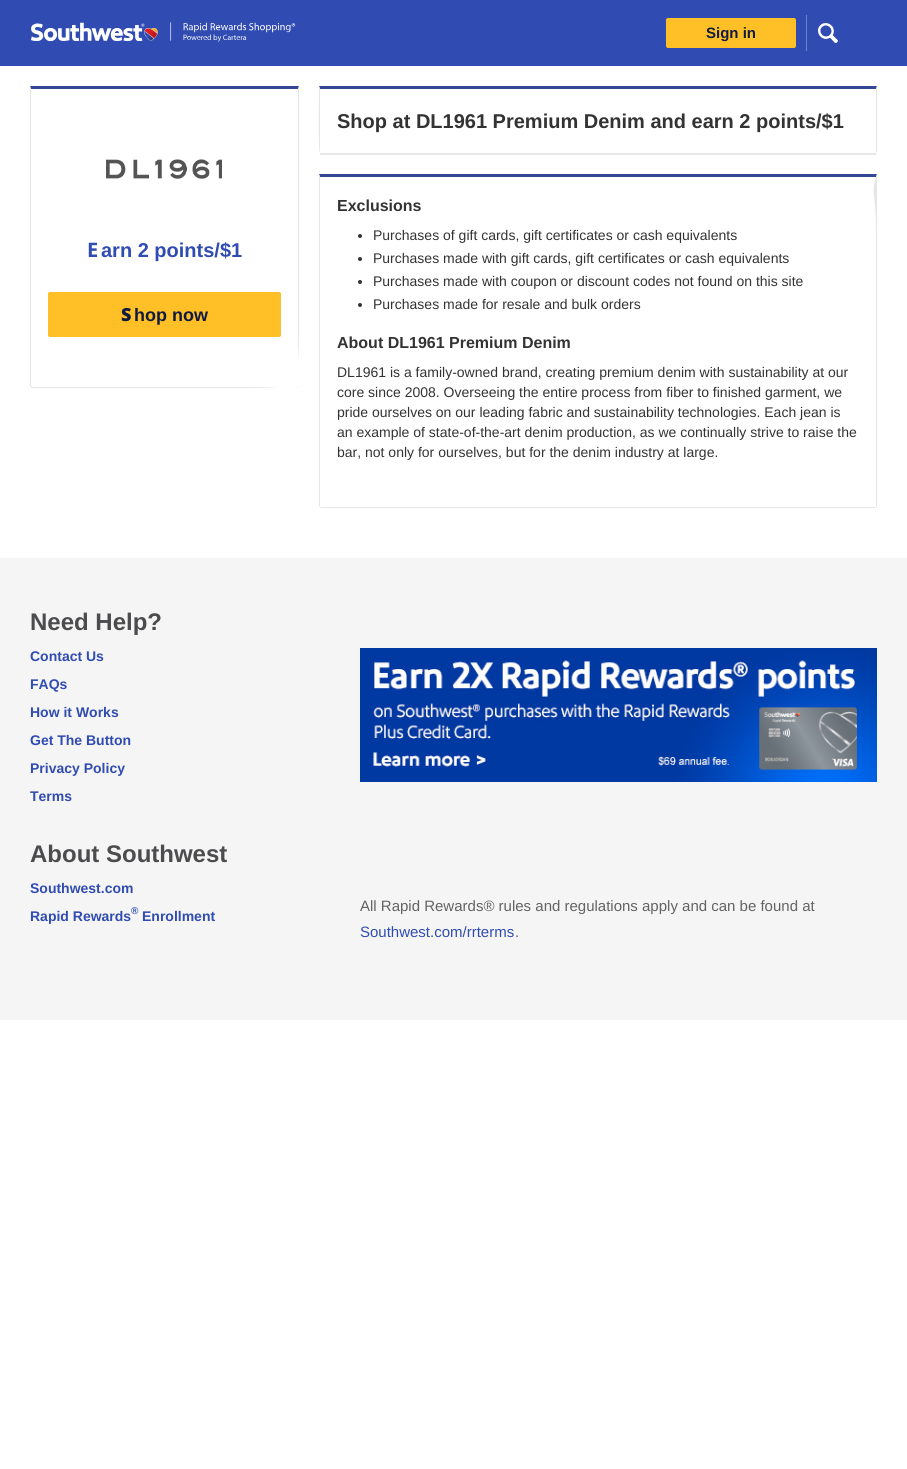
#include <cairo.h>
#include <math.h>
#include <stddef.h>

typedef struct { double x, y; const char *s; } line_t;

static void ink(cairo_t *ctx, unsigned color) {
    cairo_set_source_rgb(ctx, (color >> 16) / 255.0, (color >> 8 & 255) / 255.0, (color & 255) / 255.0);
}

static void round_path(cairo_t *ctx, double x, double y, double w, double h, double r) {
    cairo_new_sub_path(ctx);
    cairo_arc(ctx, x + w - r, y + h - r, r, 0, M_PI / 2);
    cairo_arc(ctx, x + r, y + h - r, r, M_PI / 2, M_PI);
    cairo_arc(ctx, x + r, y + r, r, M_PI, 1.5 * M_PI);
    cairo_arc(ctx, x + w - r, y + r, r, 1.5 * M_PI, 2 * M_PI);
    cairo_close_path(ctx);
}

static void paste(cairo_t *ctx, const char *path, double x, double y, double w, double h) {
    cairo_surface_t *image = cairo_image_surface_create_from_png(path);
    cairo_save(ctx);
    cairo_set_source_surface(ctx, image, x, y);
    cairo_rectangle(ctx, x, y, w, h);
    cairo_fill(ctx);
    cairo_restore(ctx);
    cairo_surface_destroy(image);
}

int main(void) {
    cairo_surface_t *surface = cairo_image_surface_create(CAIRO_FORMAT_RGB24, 907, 1469);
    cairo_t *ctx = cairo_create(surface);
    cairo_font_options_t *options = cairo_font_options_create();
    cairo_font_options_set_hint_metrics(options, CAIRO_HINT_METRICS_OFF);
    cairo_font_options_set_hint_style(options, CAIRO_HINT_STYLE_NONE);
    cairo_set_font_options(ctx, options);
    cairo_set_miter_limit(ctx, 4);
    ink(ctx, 0xFFFFFF);
    cairo_paint(ctx);
    ink(ctx, 0x304CB2);
    cairo_rectangle(ctx, 0, 0, 907, 66);
    cairo_fill(ctx);
    paste(ctx, "media/1.png", 31, 22, 265, 20);
    ink(ctx, 0x6E82C9);
    cairo_rectangle(ctx, 806, 15, 1, 36);
    cairo_fill(ctx);
    ink(ctx, 0xFFBF27);
    round_path(ctx, 666, 18, 130, 30, 2);
    cairo_fill(ctx);
    cairo_select_font_face(ctx, "Liberation Sans", CAIRO_FONT_SLANT_NORMAL, CAIRO_FONT_WEIGHT_BOLD);
    cairo_set_font_size(ctx, 15);
    ink(ctx, 0x111B40);
    cairo_move_to(ctx, 706, 38);
    cairo_show_text(ctx, "Sign in");
    paste(ctx, "media/2.png", 818, 23, 20, 20);
    ink(ctx, 0x344794);
    cairo_new_path(ctx);
    cairo_move_to(ctx, 30, 86);
    cairo_line_to(ctx, 31, 89);
    cairo_line_to(ctx, 298, 89);
    cairo_line_to(ctx, 299, 86);
    cairo_close_path(ctx);
    cairo_fill(ctx);
    ink(ctx, 0xE6E6E6);
    cairo_set_fill_rule(ctx, CAIRO_FILL_RULE_EVEN_ODD);
    cairo_new_path(ctx);
    cairo_move_to(ctx, 299, 386);
    cairo_line_to(ctx, 299, 385);
    cairo_line_to(ctx, 298, 387);
    cairo_close_path(ctx);
    cairo_move_to(ctx, 299, 86);
    cairo_line_to(ctx, 298, 89);
    cairo_line_to(ctx, 298, 336);
    cairo_curve_to(ctx, 298, 348, 299, 357, 299, 364);
    cairo_close_path(ctx);
    cairo_fill(ctx);
    cairo_new_path(ctx);
    cairo_move_to(ctx, 32, 388);
    cairo_line_to(ctx, 282, 388);
    cairo_curve_to(ctx, 275, 388, 266, 387, 253, 387);
    cairo_line_to(ctx, 32, 387);
    cairo_line_to(ctx, 32, 386);
    cairo_line_to(ctx, 31, 387);
    cairo_close_path(ctx);
    cairo_move_to(ctx, 298, 387);
    cairo_line_to(ctx, 294, 388);
    cairo_curve_to(ctx, 295, 388, 297, 388, 298, 387);
    cairo_close_path(ctx);
    cairo_fill(ctx);
    cairo_set_fill_rule(ctx, CAIRO_FILL_RULE_WINDING);
    cairo_new_path(ctx);
    cairo_move_to(ctx, 31, 89);
    cairo_line_to(ctx, 30, 86);
    cairo_line_to(ctx, 30, 386);
    cairo_line_to(ctx, 31, 387);
    cairo_line_to(ctx, 32, 386);
    cairo_line_to(ctx, 31, 386);
    cairo_close_path(ctx);
    cairo_fill(ctx);
    paste(ctx, "media/3.png", 106, 159, 116, 20);
    cairo_select_font_face(ctx, "Noto Sans", CAIRO_FONT_SLANT_NORMAL, CAIRO_FONT_WEIGHT_BOLD);
    cairo_set_font_size(ctx, 20);
    ink(ctx, 0x304CB2);
    cairo_move_to(ctx, 87, 257);
    cairo_show_text(ctx, "E");
    cairo_select_font_face(ctx, "Liberation Sans", CAIRO_FONT_SLANT_NORMAL, CAIRO_FONT_WEIGHT_BOLD);
    cairo_move_to(ctx, 101, 257);
    cairo_show_text(ctx, "arn 2 points/$1");
    ink(ctx, 0xFFBF27);
    round_path(ctx, 48.5, 292.5, 232, 44, 1.5);
    cairo_fill_preserve(ctx);
    cairo_set_line_width(ctx, 1);
    cairo_stroke(ctx);
    cairo_select_font_face(ctx, "Noto Sans Black", CAIRO_FONT_SLANT_NORMAL, CAIRO_FONT_WEIGHT_NORMAL);
    cairo_set_font_size(ctx, 18);
    ink(ctx, 0x111B40);
    cairo_move_to(ctx, 121, 321);
    cairo_show_text(ctx, "S");
    cairo_select_font_face(ctx, "Liberation Sans", CAIRO_FONT_SLANT_NORMAL, CAIRO_FONT_WEIGHT_BOLD);
    cairo_move_to(ctx, 134, 321);
    cairo_show_text(ctx, "hop now");
    ink(ctx, 0x344794);
    cairo_new_path(ctx);
    cairo_move_to(ctx, 319, 86);
    cairo_line_to(ctx, 320, 89);
    cairo_line_to(ctx, 876, 89);
    cairo_line_to(ctx, 877, 86);
    cairo_close_path(ctx);
    cairo_fill(ctx);
    ink(ctx, 0xE6E6E6);
    cairo_new_path(ctx);
    cairo_move_to(ctx, 877, 86);
    cairo_line_to(ctx, 876, 89);
    cairo_line_to(ctx, 876, 153);
    cairo_line_to(ctx, 877, 152);
    cairo_close_path(ctx);
    cairo_fill(ctx);
    cairo_new_path(ctx);
    cairo_move_to(ctx, 320, 89);
    cairo_line_to(ctx, 319, 86);
    cairo_curve_to(ctx, 319, 93, 318, 152, 320, 153);
    cairo_line_to(ctx, 320, 152);
    cairo_close_path(ctx);
    cairo_fill(ctx);
    cairo_set_font_size(ctx, 20);
    ink(ctx, 0x333333);
    cairo_move_to(ctx, 337, 128);
    cairo_show_text(ctx, "Shop at DL1961 Premium Denim and earn 2 points/$1");
    ink(ctx, 0xE6E6E6);
    cairo_rectangle(ctx, 320, 153, 556, 2);
    cairo_fill(ctx);
    ink(ctx, 0x344794);
    cairo_new_path(ctx);
    cairo_move_to(ctx, 319, 174);
    cairo_line_to(ctx, 320, 177);
    cairo_line_to(ctx, 876, 177);
    cairo_line_to(ctx, 877, 174);
    cairo_close_path(ctx);
    cairo_fill(ctx);
    ink(ctx, 0xE6E6E6);
    cairo_new_path(ctx);
    cairo_move_to(ctx, 877, 174);
    cairo_curve_to(ctx, 870, 194, 876, 189, 876, 232);
    cairo_line_to(ctx, 876, 507);
    cairo_line_to(ctx, 877, 506);
    cairo_close_path(ctx);
    cairo_fill(ctx);
    cairo_new_path(ctx);
    cairo_move_to(ctx, 321, 508);
    cairo_line_to(ctx, 875, 508);
    cairo_line_to(ctx, 876, 507);
    cairo_line_to(ctx, 320, 507);
    cairo_close_path(ctx);
    cairo_fill(ctx);
    cairo_new_path(ctx);
    cairo_move_to(ctx, 320, 177);
    cairo_line_to(ctx, 319, 174);
    cairo_line_to(ctx, 319, 506);
    cairo_line_to(ctx, 320, 507);
    cairo_line_to(ctx, 320, 506);
    cairo_close_path(ctx);
    cairo_fill(ctx);
    cairo_set_font_size(ctx, 16);
    ink(ctx, 0x333333);
    cairo_move_to(ctx, 337, 211);
    cairo_show_text(ctx, "Exclusions");
    cairo_new_path(ctx);
    cairo_arc(ctx, 360, 236, 2, 0, 2 * M_PI);
    cairo_fill(ctx);
    cairo_select_font_face(ctx, "Liberation Sans", CAIRO_FONT_SLANT_NORMAL, CAIRO_FONT_WEIGHT_NORMAL);
    cairo_set_font_size(ctx, 14);
    cairo_move_to(ctx, 373, 240);
    cairo_show_text(ctx, "Purchases of gift cards, gift certificates or cash equivalents");
    cairo_new_path(ctx);
    cairo_arc(ctx, 360, 259, 2, 0, 2 * M_PI);
    cairo_fill(ctx);
    cairo_move_to(ctx, 373, 263);
    cairo_show_text(ctx, "Purchases made with gift cards, gift certificates or cash equivalents");
    cairo_new_path(ctx);
    cairo_arc(ctx, 360, 282, 2, 0, 2 * M_PI);
    cairo_fill(ctx);
    cairo_move_to(ctx, 373, 286);
    cairo_show_text(ctx, "Purchases made with coupon or discount codes not found on this site");
    cairo_new_path(ctx);
    cairo_arc(ctx, 360, 305, 2, 0, 2 * M_PI);
    cairo_fill(ctx);
    cairo_move_to(ctx, 373, 309);
    cairo_show_text(ctx, "Purchases made for resale and bulk orders");
    cairo_select_font_face(ctx, "Liberation Sans", CAIRO_FONT_SLANT_NORMAL, CAIRO_FONT_WEIGHT_BOLD);
    cairo_set_font_size(ctx, 16);
    cairo_move_to(ctx, 337, 348);
    cairo_show_text(ctx, "About DL1961 Premium Denim");
    cairo_select_font_face(ctx, "Liberation Sans", CAIRO_FONT_SLANT_NORMAL, CAIRO_FONT_WEIGHT_NORMAL);
    cairo_set_font_size(ctx, 14);
    {
        static const line_t items[] = {
            {337, 377, "DL1961 is a family-owned brand, creating premium denim with sustainability at our"},
            {337, 397, "core since 2008. Overseeing the entire process from fiber to finished garment, we"},
            {337, 417, "pride ourselves on our leading fabric and sustainability technologies. Each jean is"},
            {337, 437, "an example of state-of-the-art denim production, as we continually strive to raise the"},
            {337, 457, "bar, not only for ourselves, but for the denim industry at large."},
        };
        for (size_t i = 0; i < sizeof items / sizeof *items; i++) {
            cairo_move_to(ctx, items[i].x, items[i].y);
            cairo_show_text(ctx, items[i].s);
        }
    }
    ink(ctx, 0xF5F5F5);
    cairo_rectangle(ctx, 0, 558, 907, 462);
    cairo_fill(ctx);
    cairo_select_font_face(ctx, "Liberation Sans", CAIRO_FONT_SLANT_NORMAL, CAIRO_FONT_WEIGHT_BOLD);
    cairo_set_font_size(ctx, 24);
    ink(ctx, 0x4C4C4E);
    cairo_move_to(ctx, 30, 630);
    cairo_show_text(ctx, "Need Help?");
    cairo_set_font_size(ctx, 14);
    ink(ctx, 0x304CB2);
    {
        static const line_t items[] = {
            {30, 661, "Contact Us"},
            {30, 689, "FAQs"},
            {30, 717, "How it Works"},
            {30, 745, "Get The Button"},
            {30, 773, "Privacy Policy"},
            {30, 801, "Terms"},
        };
        for (size_t i = 0; i < sizeof items / sizeof *items; i++) {
            cairo_move_to(ctx, items[i].x, items[i].y);
            cairo_show_text(ctx, items[i].s);
        }
    }
    cairo_set_font_size(ctx, 24);
    ink(ctx, 0x4C4C4E);
    cairo_move_to(ctx, 30, 862);
    cairo_show_text(ctx, "About Southwest");
    cairo_set_font_size(ctx, 14);
    ink(ctx, 0x304CB2);
    cairo_move_to(ctx, 30, 893);
    cairo_show_text(ctx, "Southwest.com");
    cairo_move_to(ctx, 30, 921);
    cairo_show_text(ctx, "Rapid Rewards");
    cairo_set_font_size(ctx, 10);
    cairo_move_to(ctx, 131, 914);
    cairo_show_text(ctx, "®");
    cairo_set_font_size(ctx, 14);
    cairo_move_to(ctx, 142, 921);
    cairo_show_text(ctx, "Enrollment");
    paste(ctx, "media/4.png", 360, 648, 517, 134);
    cairo_select_font_face(ctx, "Liberation Sans", CAIRO_FONT_SLANT_NORMAL, CAIRO_FONT_WEIGHT_NORMAL);
    cairo_set_font_size(ctx, 15);
    ink(ctx, 0x636363);
    cairo_move_to(ctx, 360, 911);
    cairo_show_text(ctx, "All Rapid Rewards® rules and regulations apply and can be found at");
    ink(ctx, 0x304CB2);
    cairo_move_to(ctx, 360, 937);
    cairo_show_text(ctx, "Southwest.com/rrterms");
    ink(ctx, 0x636363);
    cairo_move_to(ctx, 515, 937);
    cairo_show_text(ctx, ".");
    cairo_surface_write_to_png(surface, "image.png");
    cairo_font_options_destroy(options);
    cairo_destroy(ctx);
    cairo_surface_destroy(surface);
    return 0;
}
